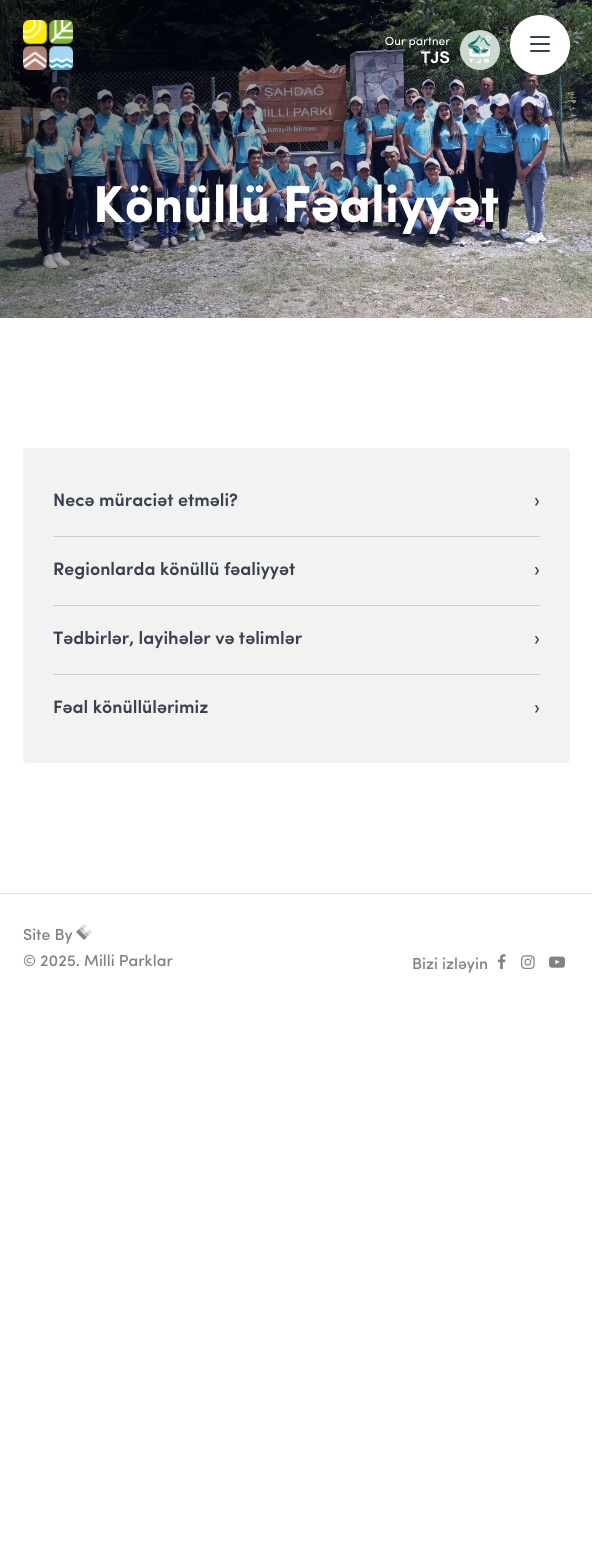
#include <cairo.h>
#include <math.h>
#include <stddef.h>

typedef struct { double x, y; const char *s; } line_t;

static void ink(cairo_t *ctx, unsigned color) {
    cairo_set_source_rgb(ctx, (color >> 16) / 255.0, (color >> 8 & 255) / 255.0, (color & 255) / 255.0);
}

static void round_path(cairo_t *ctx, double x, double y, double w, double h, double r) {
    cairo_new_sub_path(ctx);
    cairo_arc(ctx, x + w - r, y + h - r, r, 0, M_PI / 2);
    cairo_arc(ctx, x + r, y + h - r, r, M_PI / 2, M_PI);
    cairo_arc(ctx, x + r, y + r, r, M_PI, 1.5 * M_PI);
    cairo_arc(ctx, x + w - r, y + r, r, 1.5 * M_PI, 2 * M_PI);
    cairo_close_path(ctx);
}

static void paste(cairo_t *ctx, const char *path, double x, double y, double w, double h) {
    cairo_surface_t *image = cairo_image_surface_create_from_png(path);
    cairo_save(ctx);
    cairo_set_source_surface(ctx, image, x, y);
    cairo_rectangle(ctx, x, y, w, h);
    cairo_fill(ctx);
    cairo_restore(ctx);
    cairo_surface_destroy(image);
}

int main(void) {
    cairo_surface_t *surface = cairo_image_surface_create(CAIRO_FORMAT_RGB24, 592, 1558);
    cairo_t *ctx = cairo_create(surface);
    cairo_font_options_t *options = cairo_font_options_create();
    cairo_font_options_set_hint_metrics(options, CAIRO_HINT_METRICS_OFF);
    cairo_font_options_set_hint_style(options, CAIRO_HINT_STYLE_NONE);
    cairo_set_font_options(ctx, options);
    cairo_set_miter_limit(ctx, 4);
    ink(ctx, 0xFFFFFF);
    cairo_paint(ctx);
    paste(ctx, "media/3.png", 0, 0, 592, 318);
    paste(ctx, "media/1.png", 23, 20, 50, 50);
    paste(ctx, "media/2.png", 385, 30, 115, 40);
    ink(ctx, 0xFFFFFF);
    cairo_arc(ctx, 540, 45, 30, 0, 2 * M_PI);
    cairo_fill(ctx);
    ink(ctx, 0x38414E);
    round_path(ctx, 530, 36, 20, 2, 1);
    cairo_fill(ctx);
    round_path(ctx, 530, 43, 20, 2, 1);
    cairo_fill(ctx);
    round_path(ctx, 530, 50, 20, 2, 1);
    cairo_fill(ctx);
    cairo_select_font_face(ctx, "Sofia", CAIRO_FONT_SLANT_NORMAL, CAIRO_FONT_WEIGHT_BOLD);
    cairo_set_font_size(ctx, 52);
    ink(ctx, 0xFFFFFF);
    cairo_move_to(ctx, 93, 222);
    cairo_show_text(ctx, "Könüllü Fəaliyyət");
    ink(ctx, 0xF2F2F2);
    round_path(ctx, 23, 448, 547, 315, 4);
    cairo_fill(ctx);
    ink(ctx, 0xCFCFCF);
    cairo_rectangle(ctx, 53, 536, 487, 1);
    cairo_fill(ctx);
    cairo_select_font_face(ctx, "Sofia SemiBold", CAIRO_FONT_SLANT_NORMAL, CAIRO_FONT_WEIGHT_NORMAL);
    cairo_set_font_size(ctx, 18);
    ink(ctx, 0x38414E);
    cairo_move_to(ctx, 53, 506);
    cairo_show_text(ctx, "Necə müraciət etməli?");
    cairo_move_to(ctx, 534, 506);
    cairo_show_text(ctx, "›");
    ink(ctx, 0xCFCFCF);
    cairo_rectangle(ctx, 53, 605, 487, 1);
    cairo_fill(ctx);
    ink(ctx, 0x38414E);
    cairo_move_to(ctx, 53, 575);
    cairo_show_text(ctx, "Regionlarda könüllü fəaliyyət");
    cairo_move_to(ctx, 534, 575);
    cairo_show_text(ctx, "›");
    ink(ctx, 0xCFCFCF);
    cairo_rectangle(ctx, 53, 674, 487, 1);
    cairo_fill(ctx);
    ink(ctx, 0x38414E);
    {
        static const line_t items[] = {
            {53, 644, "Tədbirlər, layihələr və təlimlər"},
            {534, 644, "›"},
            {53, 713, "Fəal könüllülərimiz"},
            {534, 713, "›"},
        };
        for (size_t i = 0; i < sizeof items / sizeof *items; i++) {
            cairo_move_to(ctx, items[i].x, items[i].y);
            cairo_show_text(ctx, items[i].s);
        }
    }
    ink(ctx, 0xE0E0E0);
    cairo_rectangle(ctx, 0, 893, 592, 1);
    cairo_fill(ctx);
    cairo_select_font_face(ctx, "Sofia Medium", CAIRO_FONT_SLANT_NORMAL, CAIRO_FONT_WEIGHT_NORMAL);
    cairo_set_font_size(ctx, 16);
    ink(ctx, 0x828282);
    cairo_move_to(ctx, 23, 940);
    cairo_show_text(ctx, "Site By");
    paste(ctx, "media/4.png", 76, 924, 16, 16);
    cairo_move_to(ctx, 23, 966);
    cairo_show_text(ctx, "© 2025. Milli Parklar");
    cairo_move_to(ctx, 412, 969);
    cairo_show_text(ctx, "Bizi izləyin");
    paste(ctx, "media/5.png", 497, 954, 9, 15);
    paste(ctx, "media/6.png", 521, 955, 14, 14);
    paste(ctx, "media/7.png", 549, 956, 16, 12);
    cairo_surface_write_to_png(surface, "image.png");
    cairo_font_options_destroy(options);
    cairo_destroy(ctx);
    cairo_surface_destroy(surface);
    return 0;
}
